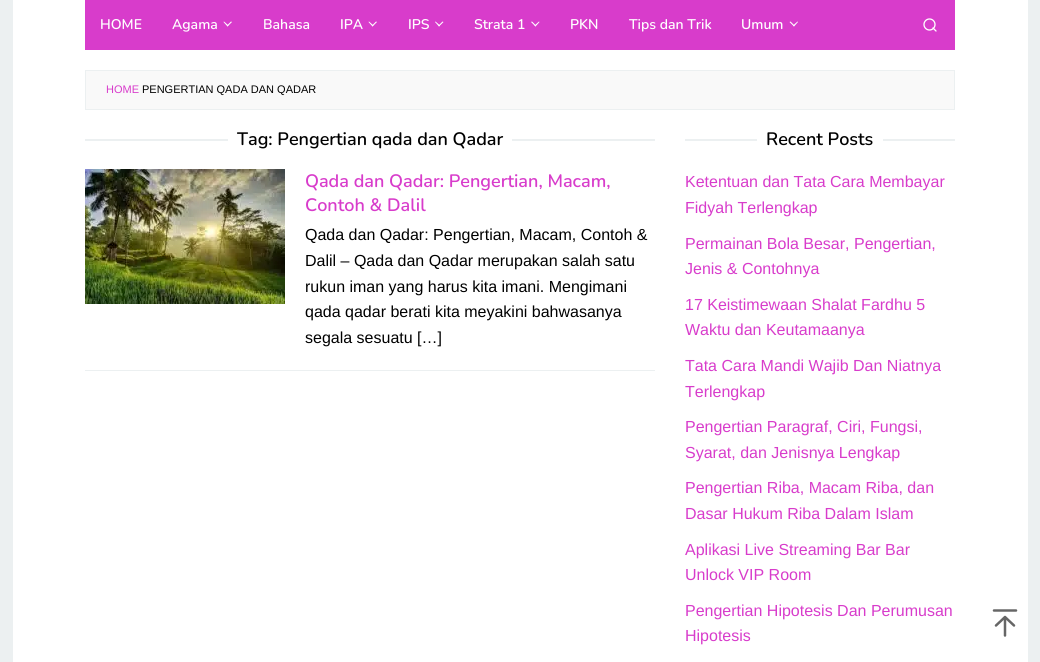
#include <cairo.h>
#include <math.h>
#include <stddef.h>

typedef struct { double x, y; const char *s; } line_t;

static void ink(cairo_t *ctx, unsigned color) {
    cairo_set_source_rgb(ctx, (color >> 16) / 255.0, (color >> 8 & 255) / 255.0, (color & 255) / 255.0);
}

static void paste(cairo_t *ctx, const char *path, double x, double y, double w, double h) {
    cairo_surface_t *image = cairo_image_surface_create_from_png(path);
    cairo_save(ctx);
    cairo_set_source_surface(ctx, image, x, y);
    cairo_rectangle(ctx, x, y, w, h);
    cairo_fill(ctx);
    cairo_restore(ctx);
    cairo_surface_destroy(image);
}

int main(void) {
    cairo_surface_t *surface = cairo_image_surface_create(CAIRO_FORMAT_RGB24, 1040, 662);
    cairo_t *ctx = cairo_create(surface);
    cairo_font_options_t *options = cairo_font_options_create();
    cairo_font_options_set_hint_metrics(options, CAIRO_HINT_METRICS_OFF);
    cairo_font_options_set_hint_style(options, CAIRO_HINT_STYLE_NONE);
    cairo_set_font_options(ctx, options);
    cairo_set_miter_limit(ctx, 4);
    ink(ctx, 0xECF0F1);
    cairo_paint(ctx);
    ink(ctx, 0xFFFFFF);
    cairo_rectangle(ctx, 13, 0, 1015, 662);
    cairo_fill(ctx);
    ink(ctx, 0xD83CCB);
    cairo_rectangle(ctx, 85, 0, 870, 50);
    cairo_fill(ctx);
    cairo_select_font_face(ctx, "Nunito SemiBold", CAIRO_FONT_SLANT_NORMAL, CAIRO_FONT_WEIGHT_NORMAL);
    cairo_set_font_size(ctx, 14);
    ink(ctx, 0xFFFFFF);
    cairo_move_to(ctx, 100, 29);
    cairo_show_text(ctx, "HOME");
    cairo_move_to(ctx, 172, 29);
    cairo_show_text(ctx, "Agama");
    cairo_new_path(ctx);
    cairo_move_to(ctx, 231, 21.5);
    cairo_line_to(ctx, 232, 22);
    cairo_line_to(ctx, 227.5, 26.5);
    cairo_line_to(ctx, 227, 25.5);
    cairo_close_path(ctx);
    cairo_fill(ctx);
    cairo_new_path(ctx);
    cairo_move_to(ctx, 224, 21.5);
    cairo_line_to(ctx, 228.5, 25.5);
    cairo_line_to(ctx, 227.5, 26.5);
    cairo_line_to(ctx, 223.5, 22);
    cairo_close_path(ctx);
    cairo_fill(ctx);
    cairo_move_to(ctx, 263, 29);
    cairo_show_text(ctx, "Bahasa");
    cairo_move_to(ctx, 340, 29);
    cairo_show_text(ctx, "IPA");
    cairo_new_path(ctx);
    cairo_move_to(ctx, 376, 21.5);
    cairo_line_to(ctx, 377, 22);
    cairo_line_to(ctx, 372.5, 26.5);
    cairo_line_to(ctx, 372, 25.5);
    cairo_close_path(ctx);
    cairo_fill(ctx);
    cairo_new_path(ctx);
    cairo_move_to(ctx, 369, 21.5);
    cairo_line_to(ctx, 373.5, 25.5);
    cairo_line_to(ctx, 372.5, 26.5);
    cairo_line_to(ctx, 368.5, 22);
    cairo_close_path(ctx);
    cairo_fill(ctx);
    cairo_move_to(ctx, 408, 29);
    cairo_show_text(ctx, "IPS");
    cairo_new_path(ctx);
    cairo_move_to(ctx, 442.5, 21.5);
    cairo_line_to(ctx, 443.5, 22);
    cairo_line_to(ctx, 439, 26.5);
    cairo_line_to(ctx, 438.5, 25.5);
    cairo_close_path(ctx);
    cairo_fill(ctx);
    cairo_new_path(ctx);
    cairo_move_to(ctx, 435.5, 21.5);
    cairo_line_to(ctx, 440, 25.5);
    cairo_line_to(ctx, 439, 26.5);
    cairo_line_to(ctx, 435, 22);
    cairo_close_path(ctx);
    cairo_fill(ctx);
    cairo_move_to(ctx, 474, 29);
    cairo_show_text(ctx, "Strata 1");
    cairo_new_path(ctx);
    cairo_move_to(ctx, 539, 21.5);
    cairo_line_to(ctx, 539.5, 22);
    cairo_line_to(ctx, 535.5, 26.5);
    cairo_line_to(ctx, 534.5, 25.5);
    cairo_close_path(ctx);
    cairo_fill(ctx);
    cairo_new_path(ctx);
    cairo_move_to(ctx, 532, 21.5);
    cairo_line_to(ctx, 536, 25.5);
    cairo_line_to(ctx, 535.5, 26.5);
    cairo_line_to(ctx, 531, 22);
    cairo_close_path(ctx);
    cairo_fill(ctx);
    {
        static const line_t items[] = {
            {570, 29, "PKN"},
            {629, 29, "Tips dan Trik"},
            {741, 29, "Umum"},
        };
        for (size_t i = 0; i < sizeof items / sizeof *items; i++) {
            cairo_move_to(ctx, items[i].x, items[i].y);
            cairo_show_text(ctx, items[i].s);
        }
    }
    cairo_new_path(ctx);
    cairo_move_to(ctx, 797.5, 21.5);
    cairo_line_to(ctx, 798, 22);
    cairo_line_to(ctx, 794, 26.5);
    cairo_line_to(ctx, 793, 25.5);
    cairo_close_path(ctx);
    cairo_fill(ctx);
    cairo_new_path(ctx);
    cairo_move_to(ctx, 790.5, 21.5);
    cairo_line_to(ctx, 794.5, 25.5);
    cairo_line_to(ctx, 794, 26.5);
    cairo_line_to(ctx, 789.5, 22);
    cairo_close_path(ctx);
    cairo_fill(ctx);
    cairo_arc(ctx, 929.5, 24.5, 5.5, 0, 2 * M_PI);
    cairo_set_line_width(ctx, 1.3);
    cairo_stroke(ctx);
    cairo_new_path(ctx);
    cairo_move_to(ctx, 936, 31);
    cairo_line_to(ctx, 933, 28);
    cairo_set_line_cap(ctx, CAIRO_LINE_CAP_ROUND);
    cairo_set_line_join(ctx, CAIRO_LINE_JOIN_ROUND);
    cairo_stroke(ctx);
    ink(ctx, 0xF9F9F9);
    cairo_rectangle(ctx, 85.5, 70.5, 869, 39);
    cairo_fill_preserve(ctx);
    ink(ctx, 0xECF0F1);
    cairo_set_line_width(ctx, 1);
    cairo_set_line_cap(ctx, CAIRO_LINE_CAP_BUTT);
    cairo_set_line_join(ctx, CAIRO_LINE_JOIN_MITER);
    cairo_stroke(ctx);
    cairo_select_font_face(ctx, "Liberation Sans", CAIRO_FONT_SLANT_NORMAL, CAIRO_FONT_WEIGHT_NORMAL);
    cairo_set_font_size(ctx, 11);
    ink(ctx, 0xD83CCB);
    cairo_move_to(ctx, 106, 93);
    cairo_show_text(ctx, "HOME");
    ink(ctx, 0x000000);
    cairo_move_to(ctx, 142, 93);
    cairo_show_text(ctx, "PENGERTIAN QADA DAN QADAR");
    ink(ctx, 0xECF0F1);
    cairo_rectangle(ctx, 85, 139, 143, 2);
    cairo_fill(ctx);
    cairo_select_font_face(ctx, "Nunito SemiBold", CAIRO_FONT_SLANT_NORMAL, CAIRO_FONT_WEIGHT_NORMAL);
    cairo_set_font_size(ctx, 18);
    ink(ctx, 0x000000);
    cairo_move_to(ctx, 237, 145);
    cairo_show_text(ctx, "Tag: Pengertian qada dan Qadar");
    ink(ctx, 0xECF0F1);
    cairo_rectangle(ctx, 512, 139, 143, 2);
    cairo_fill(ctx);
    cairo_rectangle(ctx, 85, 370, 570, 1);
    cairo_fill(ctx);
    paste(ctx, "media/1.png", 85, 169, 200, 135);
    ink(ctx, 0xD83CCB);
    cairo_move_to(ctx, 305, 187);
    cairo_show_text(ctx, "Qada dan Qadar: Pengertian, Macam,");
    cairo_move_to(ctx, 305, 211);
    cairo_show_text(ctx, "Contoh & Dalil");
    cairo_select_font_face(ctx, "Liberation Sans", CAIRO_FONT_SLANT_NORMAL, CAIRO_FONT_WEIGHT_NORMAL);
    cairo_set_font_size(ctx, 16);
    ink(ctx, 0x000000);
    {
        static const line_t items[] = {
            {305, 240, "Qada dan Qadar: Pengertian, Macam, Contoh &"},
            {305, 266, "Dalil – Qada dan Qadar merupakan salah satu"},
            {305, 292, "rukun iman yang harus kita imani. Mengimani"},
            {305, 317, "qada qadar berati kita meyakini bahwasanya"},
            {305, 343, "segala sesuatu […]"},
        };
        for (size_t i = 0; i < sizeof items / sizeof *items; i++) {
            cairo_move_to(ctx, items[i].x, items[i].y);
            cairo_show_text(ctx, items[i].s);
        }
    }
    ink(ctx, 0xECF0F1);
    cairo_rectangle(ctx, 685, 139, 72, 2);
    cairo_fill(ctx);
    cairo_select_font_face(ctx, "Nunito SemiBold", CAIRO_FONT_SLANT_NORMAL, CAIRO_FONT_WEIGHT_NORMAL);
    cairo_set_font_size(ctx, 18);
    ink(ctx, 0x000000);
    cairo_move_to(ctx, 766, 145);
    cairo_show_text(ctx, "Recent Posts");
    ink(ctx, 0xECF0F1);
    cairo_rectangle(ctx, 883, 139, 72, 2);
    cairo_fill(ctx);
    cairo_select_font_face(ctx, "Liberation Sans", CAIRO_FONT_SLANT_NORMAL, CAIRO_FONT_WEIGHT_NORMAL);
    cairo_set_font_size(ctx, 16);
    ink(ctx, 0xD83CCB);
    {
        static const line_t items[] = {
            {685, 187, "Ketentuan dan Tata Cara Membayar"},
            {685, 213, "Fidyah Terlengkap"},
            {685, 249, "Permainan Bola Besar, Pengertian,"},
            {685, 274, "Jenis & Contohnya"},
            {685, 310, "17 Keistimewaan Shalat Fardhu 5"},
            {685, 335, "Waktu dan Keutamaanya"},
            {685, 371, "Tata Cara Mandi Wajib Dan Niatnya"},
            {685, 397, "Terlengkap"},
            {685, 432, "Pengertian Paragraf, Ciri, Fungsi,"},
            {685, 458, "Syarat, dan Jenisnya Lengkap"},
            {685, 493, "Pengertian Riba, Macam Riba, dan"},
            {685, 519, "Dasar Hukum Riba Dalam Islam"},
            {685, 555, "Aplikasi Live Streaming Bar Bar"},
            {685, 580, "Unlock VIP Room"},
            {685, 616, "Pengertian Hipotesis Dan Perumusan"},
            {685, 641, "Hipotesis"},
        };
        for (size_t i = 0; i < sizeof items / sizeof *items; i++) {
            cairo_move_to(ctx, items[i].x, items[i].y);
            cairo_show_text(ctx, items[i].s);
        }
    }
    cairo_new_path(ctx);
    cairo_move_to(ctx, 1005, 635.5);
    cairo_line_to(ctx, 1005, 617);
    cairo_move_to(ctx, 996, 625.5);
    cairo_line_to(ctx, 1005, 617);
    cairo_line_to(ctx, 1014, 625.5);
    cairo_move_to(ctx, 994, 610.5);
    cairo_line_to(ctx, 1016, 610.5);
    ink(ctx, 0x666666);
    cairo_set_line_width(ctx, 2.5);
    cairo_set_line_cap(ctx, CAIRO_LINE_CAP_ROUND);
    cairo_set_line_join(ctx, CAIRO_LINE_JOIN_ROUND);
    cairo_stroke(ctx);
    cairo_surface_write_to_png(surface, "image.png");
    cairo_font_options_destroy(options);
    cairo_destroy(ctx);
    cairo_surface_destroy(surface);
    return 0;
}
